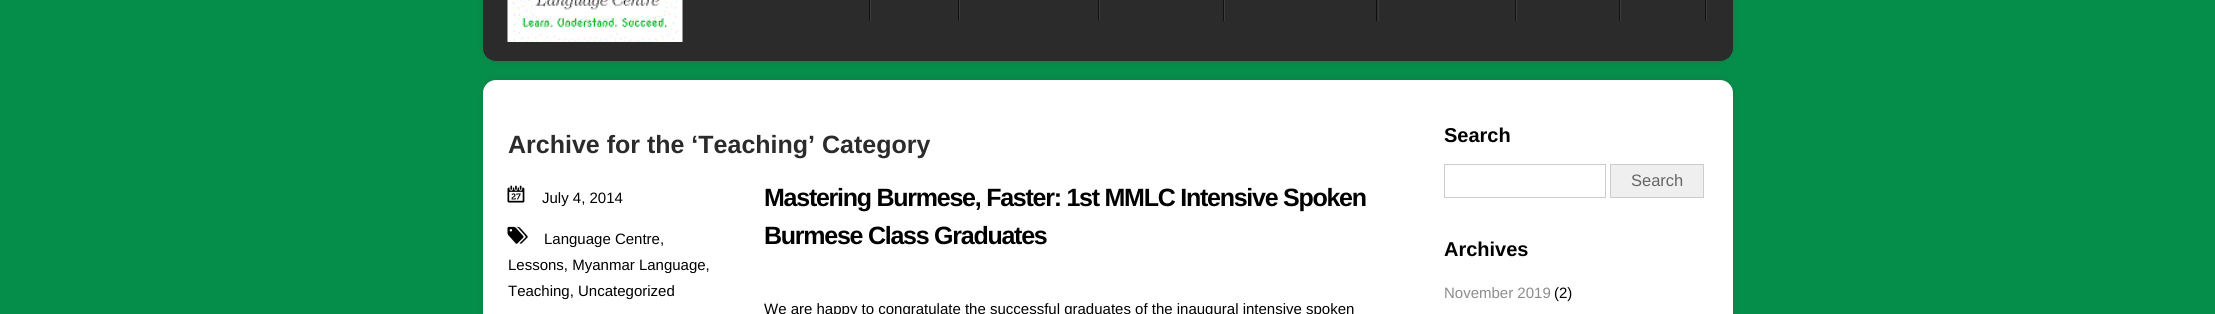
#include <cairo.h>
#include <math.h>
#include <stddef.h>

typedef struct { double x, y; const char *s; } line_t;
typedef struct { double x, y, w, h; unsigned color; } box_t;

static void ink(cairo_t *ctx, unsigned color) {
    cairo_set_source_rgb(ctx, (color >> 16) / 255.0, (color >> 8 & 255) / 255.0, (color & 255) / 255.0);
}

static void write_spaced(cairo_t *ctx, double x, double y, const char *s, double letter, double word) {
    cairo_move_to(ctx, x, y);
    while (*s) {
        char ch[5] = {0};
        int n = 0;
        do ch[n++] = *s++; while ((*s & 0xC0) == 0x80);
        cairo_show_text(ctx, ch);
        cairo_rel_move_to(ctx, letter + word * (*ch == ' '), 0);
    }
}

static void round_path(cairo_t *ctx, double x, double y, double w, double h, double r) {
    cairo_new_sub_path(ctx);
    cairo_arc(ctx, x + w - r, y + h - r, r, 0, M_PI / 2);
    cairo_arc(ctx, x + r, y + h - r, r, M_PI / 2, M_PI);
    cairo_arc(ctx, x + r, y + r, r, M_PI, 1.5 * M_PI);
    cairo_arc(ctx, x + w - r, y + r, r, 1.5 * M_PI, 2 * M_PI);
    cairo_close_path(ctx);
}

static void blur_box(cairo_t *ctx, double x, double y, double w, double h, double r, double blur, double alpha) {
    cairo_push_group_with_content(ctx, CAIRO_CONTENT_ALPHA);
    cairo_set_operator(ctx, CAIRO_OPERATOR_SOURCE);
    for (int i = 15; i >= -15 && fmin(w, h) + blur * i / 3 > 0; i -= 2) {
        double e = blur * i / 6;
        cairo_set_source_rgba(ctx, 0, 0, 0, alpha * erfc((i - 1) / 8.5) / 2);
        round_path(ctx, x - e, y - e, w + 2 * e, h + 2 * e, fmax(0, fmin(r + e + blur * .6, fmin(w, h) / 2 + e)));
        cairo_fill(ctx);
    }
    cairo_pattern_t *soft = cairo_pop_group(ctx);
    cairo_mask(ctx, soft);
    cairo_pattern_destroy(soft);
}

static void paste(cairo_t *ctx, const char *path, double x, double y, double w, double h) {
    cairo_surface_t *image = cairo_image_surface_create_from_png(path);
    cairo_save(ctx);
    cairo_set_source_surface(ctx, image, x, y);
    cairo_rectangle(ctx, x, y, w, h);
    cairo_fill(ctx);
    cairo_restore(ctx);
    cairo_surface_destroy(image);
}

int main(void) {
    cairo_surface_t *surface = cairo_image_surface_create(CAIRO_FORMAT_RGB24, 2215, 314);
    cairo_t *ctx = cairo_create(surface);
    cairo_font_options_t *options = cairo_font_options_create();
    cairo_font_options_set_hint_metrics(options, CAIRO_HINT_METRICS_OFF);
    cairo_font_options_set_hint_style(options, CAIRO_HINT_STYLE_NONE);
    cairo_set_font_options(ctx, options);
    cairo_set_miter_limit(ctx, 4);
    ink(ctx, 0x048E49);
    cairo_paint(ctx);
    ink(ctx, 0x464646);
    blur_box(ctx, 483, -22, 1250, 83, 13, 3, 0.3);
    ink(ctx, 0x2B2B2B);
    round_path(ctx, 483, -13, 1250, 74, 13);
    cairo_fill(ctx);
    paste(ctx, "media/1.png", 507, 0, 176, 42);
    {
        static const box_t items[] = {
            {1706, 0, 1, 21, 0x3C3C3C},
            {869, 0, 1, 21, 0x111111},
            {958, 0, 1, 21, 0x111111},
            {870, 0, 1, 21, 0x3C3C3C},
            {1098, 0, 1, 21, 0x111111},
            {959, 0, 1, 21, 0x3C3C3C},
            {1223, 0, 1, 21, 0x111111},
            {1099, 0, 1, 21, 0x3C3C3C},
            {1376, 0, 1, 21, 0x111111},
            {1224, 0, 1, 21, 0x3C3C3C},
            {1515, 0, 1, 21, 0x111111},
            {1378, 0, 1, 21, 0x3C3C3C},
            {1619, 0, 1, 21, 0x111111},
            {1516, 0, 1, 21, 0x3C3C3C},
            {1705, 0, 1, 21, 0x111111},
            {1620, 0, 1, 21, 0x3C3C3C},
        };
        for (size_t i = 0; i < sizeof items / sizeof *items; i++) {
            ink(ctx, items[i].color);
            cairo_rectangle(ctx, items[i].x, items[i].y, items[i].w, items[i].h);
            cairo_fill(ctx);
        }
    }
    ink(ctx, 0x464646);
    blur_box(ctx, 483, 80, 1250, 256, 13, 3, 0.3);
    ink(ctx, 0xFFFFFF);
    round_path(ctx, 483, 80, 1250, 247, 13);
    cairo_fill(ctx);
    cairo_select_font_face(ctx, "Liberation Sans", CAIRO_FONT_SLANT_NORMAL, CAIRO_FONT_WEIGHT_BOLD);
    cairo_set_font_size(ctx, 25);
    ink(ctx, 0x2B2B2B);
    cairo_move_to(ctx, 508, 153);
    cairo_show_text(ctx, "Archive for the ‘Teaching’ Category");
    paste(ctx, "media/2.png", 507, 185, 18, 18);
    cairo_select_font_face(ctx, "Liberation Sans", CAIRO_FONT_SLANT_NORMAL, CAIRO_FONT_WEIGHT_NORMAL);
    cairo_set_font_size(ctx, 15);
    ink(ctx, 0x000000);
    cairo_move_to(ctx, 542, 203);
    cairo_show_text(ctx, "July 4, 2014");
    paste(ctx, "media/3.png", 507, 226, 21, 18);
    {
        static const line_t items[] = {
            {544, 244, "Language Centre,"},
            {508, 270, "Lessons, Myanmar Language,"},
            {508, 296, "Teaching, Uncategorized"},
        };
        for (size_t i = 0; i < sizeof items / sizeof *items; i++) {
            cairo_move_to(ctx, items[i].x, items[i].y);
            cairo_show_text(ctx, items[i].s);
        }
    }
    cairo_select_font_face(ctx, "Liberation Sans", CAIRO_FONT_SLANT_NORMAL, CAIRO_FONT_WEIGHT_BOLD);
    cairo_set_font_size(ctx, 25);
    write_spaced(ctx, 764, 206, "Mastering Burmese, Faster: 1st MMLC Intensive Spoken", -1.25, 0);
    write_spaced(ctx, 764, 244, "Burmese Class Graduates", -1.25, 0);
    cairo_select_font_face(ctx, "Liberation Sans", CAIRO_FONT_SLANT_NORMAL, CAIRO_FONT_WEIGHT_NORMAL);
    cairo_set_font_size(ctx, 15);
    cairo_move_to(ctx, 764, 314);
    cairo_show_text(ctx, "We are happy to congratulate the successful graduates of the inaugural intensive spoken");
    cairo_select_font_face(ctx, "Liberation Sans", CAIRO_FONT_SLANT_NORMAL, CAIRO_FONT_WEIGHT_BOLD);
    cairo_set_font_size(ctx, 20);
    cairo_move_to(ctx, 1444, 142);
    cairo_show_text(ctx, "Search");
    cairo_rectangle(ctx, 1444.5, 164.5, 161, 33);
    ink(ctx, 0xCCCCCC);
    cairo_set_line_width(ctx, 1);
    cairo_stroke(ctx);
    ink(ctx, 0xEFEFEF);
    cairo_rectangle(ctx, 1610.5, 164.5, 93, 33);
    cairo_fill_preserve(ctx);
    ink(ctx, 0xCCCCCC);
    cairo_stroke(ctx);
    cairo_select_font_face(ctx, "Liberation Sans", CAIRO_FONT_SLANT_NORMAL, CAIRO_FONT_WEIGHT_NORMAL);
    cairo_set_font_size(ctx, 16.5);
    ink(ctx, 0x666666);
    cairo_move_to(ctx, 1631, 186);
    cairo_show_text(ctx, "Search");
    cairo_select_font_face(ctx, "Liberation Sans", CAIRO_FONT_SLANT_NORMAL, CAIRO_FONT_WEIGHT_BOLD);
    cairo_set_font_size(ctx, 20);
    ink(ctx, 0x000000);
    cairo_move_to(ctx, 1444, 256);
    cairo_show_text(ctx, "Archives");
    cairo_select_font_face(ctx, "Liberation Sans", CAIRO_FONT_SLANT_NORMAL, CAIRO_FONT_WEIGHT_NORMAL);
    cairo_set_font_size(ctx, 15);
    ink(ctx, 0x8C8C8C);
    cairo_move_to(ctx, 1444, 298);
    cairo_show_text(ctx, "November 2019");
    ink(ctx, 0x000000);
    cairo_move_to(ctx, 1554, 298);
    cairo_show_text(ctx, "(2)");
    cairo_surface_write_to_png(surface, "image.png");
    cairo_font_options_destroy(options);
    cairo_destroy(ctx);
    cairo_surface_destroy(surface);
    return 0;
}
